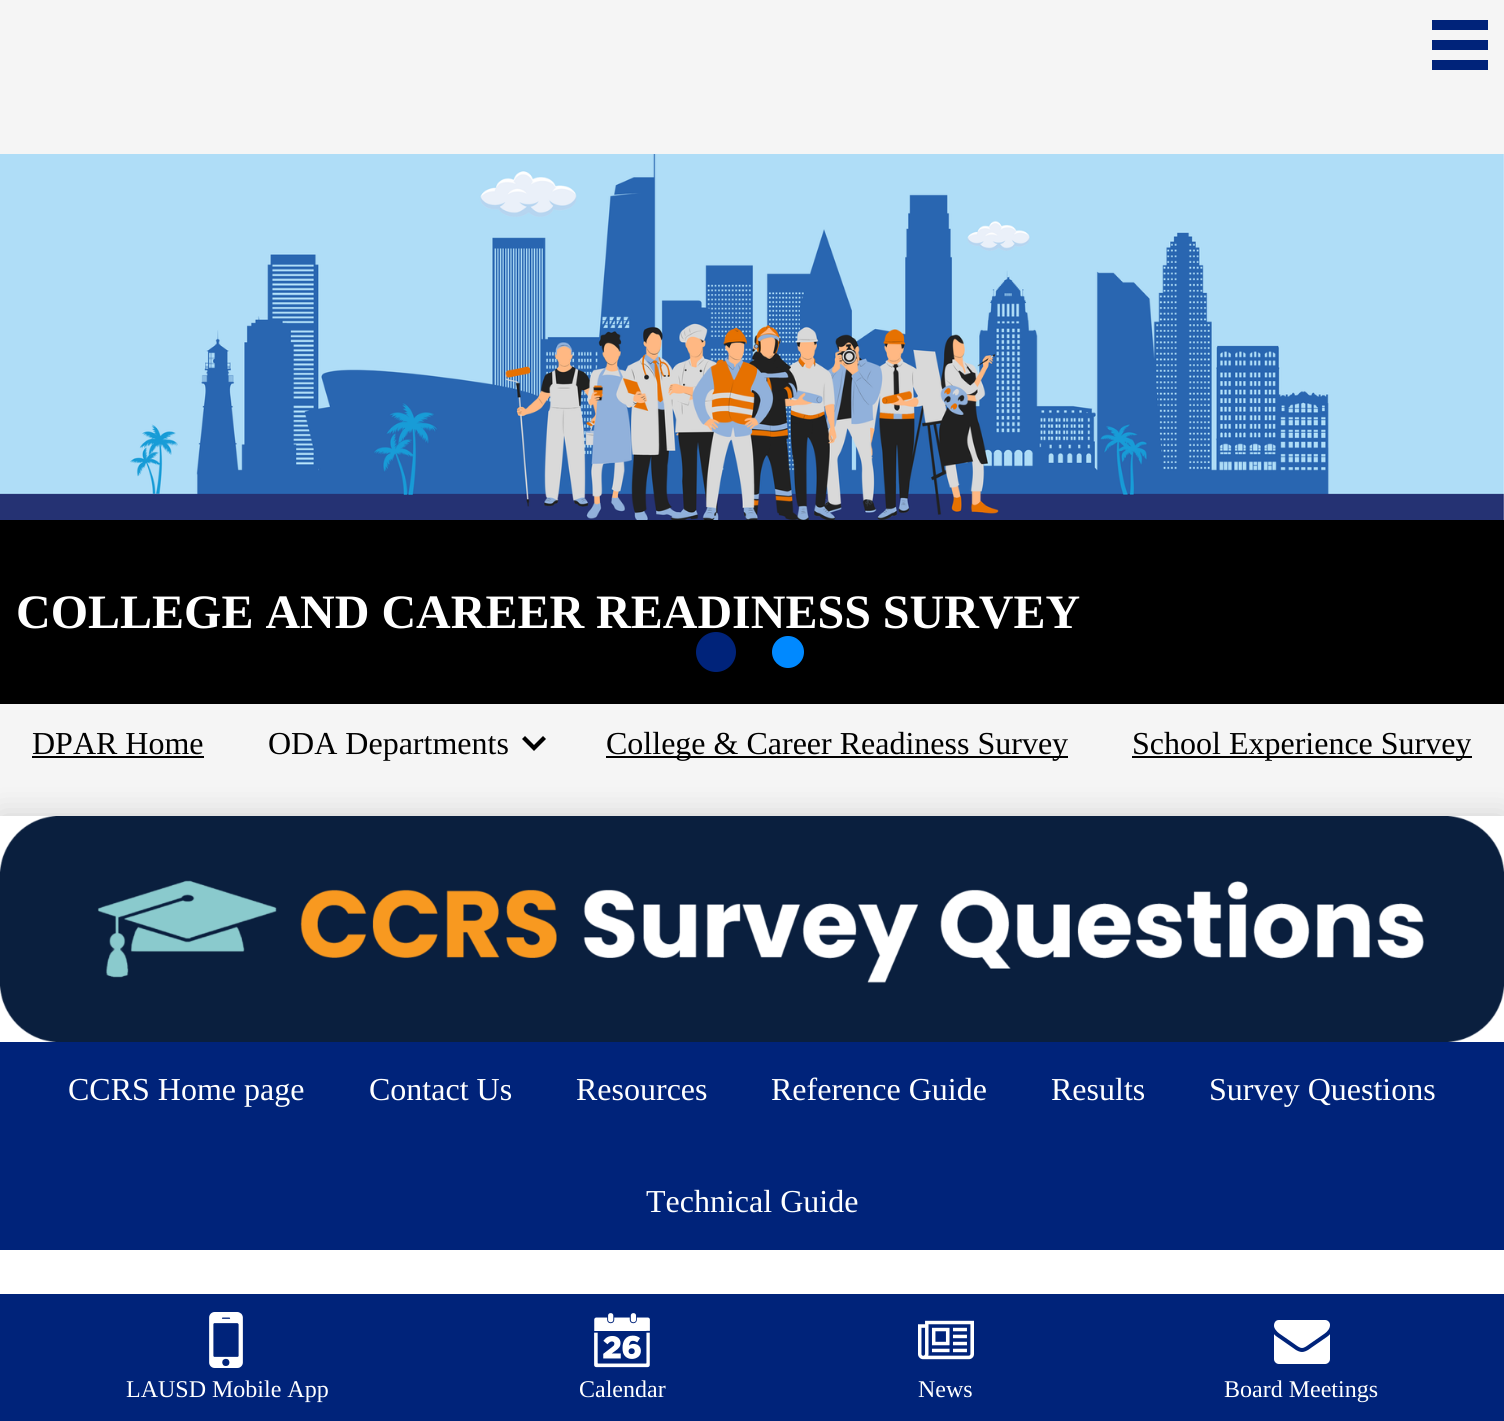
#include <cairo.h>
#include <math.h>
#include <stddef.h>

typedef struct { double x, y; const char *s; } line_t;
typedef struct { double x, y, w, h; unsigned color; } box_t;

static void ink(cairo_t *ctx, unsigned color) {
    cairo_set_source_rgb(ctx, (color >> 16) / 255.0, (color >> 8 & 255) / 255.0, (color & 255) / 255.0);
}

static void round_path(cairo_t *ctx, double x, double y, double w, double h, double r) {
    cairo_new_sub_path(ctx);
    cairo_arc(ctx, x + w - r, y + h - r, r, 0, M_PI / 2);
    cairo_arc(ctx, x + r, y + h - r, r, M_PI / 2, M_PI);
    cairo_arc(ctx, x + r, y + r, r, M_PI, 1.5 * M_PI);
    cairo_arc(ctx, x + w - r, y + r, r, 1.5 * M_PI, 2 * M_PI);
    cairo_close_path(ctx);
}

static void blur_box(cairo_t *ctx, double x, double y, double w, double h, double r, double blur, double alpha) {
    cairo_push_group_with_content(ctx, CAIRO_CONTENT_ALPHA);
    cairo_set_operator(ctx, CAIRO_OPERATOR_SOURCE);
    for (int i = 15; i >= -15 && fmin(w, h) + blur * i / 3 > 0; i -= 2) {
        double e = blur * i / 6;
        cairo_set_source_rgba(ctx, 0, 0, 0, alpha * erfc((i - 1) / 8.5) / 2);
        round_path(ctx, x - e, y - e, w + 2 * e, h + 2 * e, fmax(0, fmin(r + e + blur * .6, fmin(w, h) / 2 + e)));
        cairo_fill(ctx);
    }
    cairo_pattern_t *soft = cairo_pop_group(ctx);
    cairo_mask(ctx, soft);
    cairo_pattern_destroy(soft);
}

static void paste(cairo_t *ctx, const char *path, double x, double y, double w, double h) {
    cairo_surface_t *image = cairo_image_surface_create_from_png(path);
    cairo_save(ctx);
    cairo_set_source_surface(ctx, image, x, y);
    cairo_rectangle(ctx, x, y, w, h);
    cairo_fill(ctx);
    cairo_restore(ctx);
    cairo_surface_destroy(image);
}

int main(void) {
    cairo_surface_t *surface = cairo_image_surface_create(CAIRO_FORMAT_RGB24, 1504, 1421);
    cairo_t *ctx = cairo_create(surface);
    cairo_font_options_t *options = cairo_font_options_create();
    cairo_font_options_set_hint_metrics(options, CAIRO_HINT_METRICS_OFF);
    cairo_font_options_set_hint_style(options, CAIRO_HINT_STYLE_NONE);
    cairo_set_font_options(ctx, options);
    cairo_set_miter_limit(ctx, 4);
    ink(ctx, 0xF5F5F5);
    cairo_paint(ctx);
    {
        static const box_t items[] = {
            {1432, 20, 56, 10, 0x00237A},
            {1432, 40, 56, 10, 0x00237A},
            {1432, 60, 56, 10, 0x00237A},
        };
        for (size_t i = 0; i < sizeof items / sizeof *items; i++) {
            ink(ctx, items[i].color);
            cairo_rectangle(ctx, items[i].x, items[i].y, items[i].w, items[i].h);
            cairo_fill(ctx);
        }
    }
    paste(ctx, "media/1.png", 0, 154, 1504, 366);
    ink(ctx, 0x000000);
    cairo_rectangle(ctx, 0, 520, 1504, 184);
    cairo_fill(ctx);
    cairo_select_font_face(ctx, "Liberation Serif", CAIRO_FONT_SLANT_NORMAL, CAIRO_FONT_WEIGHT_BOLD);
    cairo_set_font_size(ctx, 48);
    ink(ctx, 0xFFFFFF);
    cairo_move_to(ctx, 16, 628);
    cairo_show_text(ctx, "COLLEGE AND CAREER READINESS SURVEY");
    ink(ctx, 0x00237A);
    cairo_new_path(ctx);
    cairo_arc(ctx, 716, 652, 20, 0, 2 * M_PI);
    cairo_fill(ctx);
    ink(ctx, 0x0089FF);
    cairo_arc(ctx, 788, 652, 16, 0, 2 * M_PI);
    cairo_fill(ctx);
    cairo_select_font_face(ctx, "Liberation Serif", CAIRO_FONT_SLANT_NORMAL, CAIRO_FONT_WEIGHT_NORMAL);
    cairo_set_font_size(ctx, 32);
    ink(ctx, 0x000000);
    cairo_move_to(ctx, 32, 754);
    cairo_show_text(ctx, "DPAR Home");
    cairo_rectangle(ctx, 32, 756, 172, 2);
    cairo_fill(ctx);
    cairo_move_to(ctx, 268, 754);
    cairo_show_text(ctx, "ODA Departments");
    cairo_new_path(ctx);
    cairo_move_to(ctx, 534, 751);
    cairo_line_to(ctx, 522, 739);
    cairo_line_to(ctx, 525, 736);
    cairo_line_to(ctx, 534, 745);
    cairo_line_to(ctx, 543, 736);
    cairo_line_to(ctx, 546, 739);
    cairo_close_path(ctx);
    cairo_fill(ctx);
    cairo_rectangle(ctx, 606, 756, 462, 2);
    cairo_fill(ctx);
    cairo_move_to(ctx, 606, 754);
    cairo_show_text(ctx, "College & Career Readiness Survey");
    cairo_rectangle(ctx, 1132, 756, 340, 2);
    cairo_fill(ctx);
    cairo_move_to(ctx, 1132, 754);
    cairo_show_text(ctx, "School Experience Survey");
    ink(ctx, 0x000000);
    blur_box(ctx, 0, 816, 1504, 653, 0, 16, 0.15);
    ink(ctx, 0xFFFFFF);
    cairo_rectangle(ctx, 0, 816, 1504, 478);
    cairo_fill(ctx);
    paste(ctx, "media/2.png", 0, 816, 1504, 226);
    ink(ctx, 0x00237A);
    cairo_rectangle(ctx, 0, 1042, 1504, 208);
    cairo_fill(ctx);
    ink(ctx, 0xFFFFFF);
    {
        static const line_t items[] = {
            {68, 1100, "CCRS Home page"},
            {369, 1100, "Contact Us"},
            {576, 1100, "Resources"},
            {771, 1100, "Reference Guide"},
            {1051, 1100, "Results"},
            {1209, 1100, "Survey Questions"},
            {646, 1212, "Technical Guide"},
        };
        for (size_t i = 0; i < sizeof items / sizeof *items; i++) {
            cairo_move_to(ctx, items[i].x, items[i].y);
            cairo_show_text(ctx, items[i].s);
        }
    }
    ink(ctx, 0x00237A);
    cairo_rectangle(ctx, 0, 1294, 1504, 127);
    cairo_fill(ctx);
    paste(ctx, "media/3.png", 209, 1312, 34, 56);
    cairo_set_font_size(ctx, 24);
    ink(ctx, 0xFFFFFF);
    cairo_move_to(ctx, 126, 1397);
    cairo_show_text(ctx, "LAUSD Mobile App");
    paste(ctx, "media/4.png", 594, 1313, 56, 55);
    cairo_move_to(ctx, 579, 1397);
    cairo_show_text(ctx, "Calendar");
    paste(ctx, "media/5.png", 918, 1320, 56, 40);
    cairo_move_to(ctx, 918, 1397);
    cairo_show_text(ctx, "News");
    paste(ctx, "media/6.png", 1274, 1320, 56, 44);
    cairo_move_to(ctx, 1224, 1397);
    cairo_show_text(ctx, "Board Meetings");
    cairo_surface_write_to_png(surface, "image.png");
    cairo_font_options_destroy(options);
    cairo_destroy(ctx);
    cairo_surface_destroy(surface);
    return 0;
}
